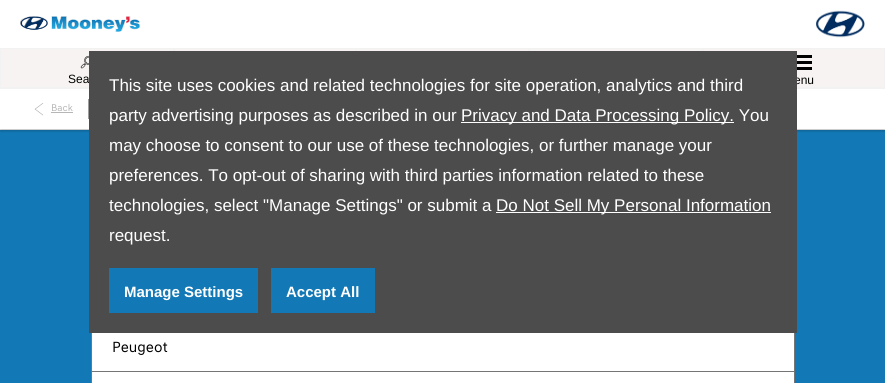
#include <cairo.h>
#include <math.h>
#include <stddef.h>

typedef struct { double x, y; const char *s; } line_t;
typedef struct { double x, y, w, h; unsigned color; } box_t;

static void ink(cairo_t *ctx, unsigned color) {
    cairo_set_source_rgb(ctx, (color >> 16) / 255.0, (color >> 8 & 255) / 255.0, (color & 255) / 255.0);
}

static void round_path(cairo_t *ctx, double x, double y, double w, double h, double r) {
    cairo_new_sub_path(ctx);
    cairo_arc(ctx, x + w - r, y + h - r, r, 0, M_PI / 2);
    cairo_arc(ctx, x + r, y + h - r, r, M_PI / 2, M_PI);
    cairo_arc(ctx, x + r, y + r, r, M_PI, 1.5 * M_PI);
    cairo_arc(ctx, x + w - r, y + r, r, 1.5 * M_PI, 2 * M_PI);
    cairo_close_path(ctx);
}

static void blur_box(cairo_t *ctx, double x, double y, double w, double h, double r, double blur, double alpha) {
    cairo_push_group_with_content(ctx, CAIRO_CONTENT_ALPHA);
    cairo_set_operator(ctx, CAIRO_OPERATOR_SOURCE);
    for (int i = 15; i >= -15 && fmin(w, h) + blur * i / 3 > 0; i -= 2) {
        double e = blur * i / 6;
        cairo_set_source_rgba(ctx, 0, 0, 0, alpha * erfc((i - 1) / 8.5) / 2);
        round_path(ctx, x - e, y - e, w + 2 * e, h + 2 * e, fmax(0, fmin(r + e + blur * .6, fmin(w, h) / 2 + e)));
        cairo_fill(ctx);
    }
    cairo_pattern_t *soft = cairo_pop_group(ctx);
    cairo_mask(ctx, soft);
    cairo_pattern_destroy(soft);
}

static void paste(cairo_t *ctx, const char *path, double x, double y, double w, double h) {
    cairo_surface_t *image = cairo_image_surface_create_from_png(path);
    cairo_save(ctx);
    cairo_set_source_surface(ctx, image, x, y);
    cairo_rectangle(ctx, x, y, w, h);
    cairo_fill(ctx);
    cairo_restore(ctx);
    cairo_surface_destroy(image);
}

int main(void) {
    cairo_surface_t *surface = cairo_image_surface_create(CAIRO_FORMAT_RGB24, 885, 383);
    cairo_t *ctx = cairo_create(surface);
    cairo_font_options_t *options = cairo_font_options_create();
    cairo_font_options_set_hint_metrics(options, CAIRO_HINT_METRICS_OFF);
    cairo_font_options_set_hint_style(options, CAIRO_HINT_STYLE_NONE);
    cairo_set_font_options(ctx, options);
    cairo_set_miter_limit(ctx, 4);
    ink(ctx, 0xFFFFFF);
    cairo_paint(ctx);
    ink(ctx, 0x1279B6);
    cairo_rectangle(ctx, 0, 130, 885, 253);
    cairo_fill(ctx);
    cairo_save(ctx);
    cairo_rectangle(ctx, 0, 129, 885, 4);
    cairo_clip(ctx);
    ink(ctx, 0x000000);
    blur_box(ctx, 0, 0, 885, 129, 0, 2.5, 0.3);
    cairo_restore(ctx);
    paste(ctx, "media/1.png", 20, 16, 120, 16);
    paste(ctx, "media/2.png", 816, 10, 49, 28);
    ink(ctx, 0xF6F3F2);
    cairo_rectangle(ctx, 1, 49, 883, 38);
    cairo_fill(ctx);
    cairo_save(ctx);
    cairo_rectangle(ctx, 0, 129, 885, 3);
    cairo_clip(ctx);
    ink(ctx, 0x000000);
    blur_box(ctx, 0, 90, 885, 41, 0, 1.5, 0.1);
    cairo_restore(ctx);
    cairo_rectangle(ctx, 0.5, 48.5, 173, 39);
    ink(ctx, 0xF2F2F2);
    cairo_set_line_width(ctx, 1);
    cairo_stroke(ctx);
    paste(ctx, "media/3.png", 80, 55, 9, 14);
    cairo_select_font_face(ctx, "Liberation Sans", CAIRO_FONT_SLANT_NORMAL, CAIRO_FONT_WEIGHT_NORMAL);
    cairo_set_font_size(ctx, 12);
    ink(ctx, 0x000000);
    cairo_move_to(ctx, 68, 83);
    cairo_show_text(ctx, "Sea");
    cairo_rectangle(ctx, 174.5, 48.5, 181, 39);
    ink(ctx, 0xF2F2F2);
    cairo_stroke(ctx);
    cairo_rectangle(ctx, 356.5, 48.5, 172, 39);
    cairo_stroke(ctx);
    cairo_rectangle(ctx, 529.5, 48.5, 173, 39);
    cairo_stroke(ctx);
    cairo_rectangle(ctx, 703.5, 48.5, 181, 39);
    cairo_stroke(ctx);
    {
        static const box_t items[] = {
            {797, 67, 15, 3, 0x000000},
            {797, 55, 15, 3, 0x000000},
            {797, 61, 15, 3, 0x000000},
        };
        for (size_t i = 0; i < sizeof items / sizeof *items; i++) {
            ink(ctx, items[i].color);
            cairo_rectangle(ctx, items[i].x, items[i].y, items[i].w, items[i].h);
            cairo_fill(ctx);
        }
    }
    cairo_move_to(ctx, 794, 84);
    cairo_show_text(ctx, "enu");
    ink(ctx, 0xF2F2F2);
    cairo_rectangle(ctx, 0, 88, 885, 1);
    cairo_fill(ctx);
    paste(ctx, "media/4.png", 34, 103, 10, 13);
    cairo_select_font_face(ctx, "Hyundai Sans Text", CAIRO_FONT_SLANT_NORMAL, CAIRO_FONT_WEIGHT_NORMAL);
    cairo_set_font_size(ctx, 10);
    ink(ctx, 0xB6B6B6);
    cairo_move_to(ctx, 51, 111);
    cairo_show_text(ctx, "Back");
    {
        static const box_t items[] = {
            {51, 112, 22, 1, 0xB6B6B6},
            {88, 99, 1, 20, 0x9D9D9C},
            {794, 333, 1, 50, 0x757575},
            {91, 333, 1, 50, 0x757575},
            {92, 333, 702, 38, 0xFFFFFF},
            {92, 371, 702, 1, 0x757575},
        };
        for (size_t i = 0; i < sizeof items / sizeof *items; i++) {
            ink(ctx, items[i].color);
            cairo_rectangle(ctx, items[i].x, items[i].y, items[i].w, items[i].h);
            cairo_fill(ctx);
        }
    }
    cairo_set_font_size(ctx, 15);
    ink(ctx, 0x000000);
    cairo_move_to(ctx, 112, 352);
    cairo_show_text(ctx, "Peugeot");
    ink(ctx, 0xFFFFFF);
    cairo_rectangle(ctx, 92, 372, 702, 11);
    cairo_fill(ctx);
    ink(ctx, 0x4B4C4B);
    cairo_rectangle(ctx, 89, 51, 708, 282);
    cairo_fill(ctx);
    cairo_select_font_face(ctx, "Liberation Sans", CAIRO_FONT_SLANT_NORMAL, CAIRO_FONT_WEIGHT_NORMAL);
    cairo_set_font_size(ctx, 17);
    ink(ctx, 0xFFFFFF);
    cairo_move_to(ctx, 109, 91);
    cairo_show_text(ctx, "This site uses cookies and related technologies for site operation, analytics and third");
    cairo_move_to(ctx, 109, 121);
    cairo_show_text(ctx, "party advertising purposes as described in our");
    cairo_rectangle(ctx, 461, 122, 273, 1);
    cairo_fill(ctx);
    {
        static const line_t items[] = {
            {461, 121, "Privacy and Data Processing Policy. You"},
            {109, 151, "may choose to consent to our use of these technologies, or further manage your"},
            {109, 181, "preferences. To opt-out of sharing with third parties information related to these"},
            {109, 211, "technologies, select \"Manage Settings\" or submit a"},
        };
        for (size_t i = 0; i < sizeof items / sizeof *items; i++) {
            cairo_move_to(ctx, items[i].x, items[i].y);
            cairo_show_text(ctx, items[i].s);
        }
    }
    cairo_rectangle(ctx, 496, 212, 275, 1);
    cairo_fill(ctx);
    cairo_move_to(ctx, 496, 211);
    cairo_show_text(ctx, "Do Not Sell My Personal Information");
    cairo_move_to(ctx, 109, 241);
    cairo_show_text(ctx, "request.");
    ink(ctx, 0x1279B6);
    cairo_rectangle(ctx, 109, 268, 149, 45);
    cairo_fill(ctx);
    cairo_select_font_face(ctx, "Liberation Sans", CAIRO_FONT_SLANT_NORMAL, CAIRO_FONT_WEIGHT_BOLD);
    cairo_set_font_size(ctx, 15);
    ink(ctx, 0xFFFFFF);
    cairo_move_to(ctx, 124, 297);
    cairo_show_text(ctx, "Manage Settings");
    ink(ctx, 0x1279B6);
    cairo_rectangle(ctx, 271, 268, 104, 45);
    cairo_fill(ctx);
    ink(ctx, 0xFFFFFF);
    cairo_move_to(ctx, 286, 297);
    cairo_show_text(ctx, "Accept All");
    cairo_surface_write_to_png(surface, "image.png");
    cairo_font_options_destroy(options);
    cairo_destroy(ctx);
    cairo_surface_destroy(surface);
    return 0;
}
